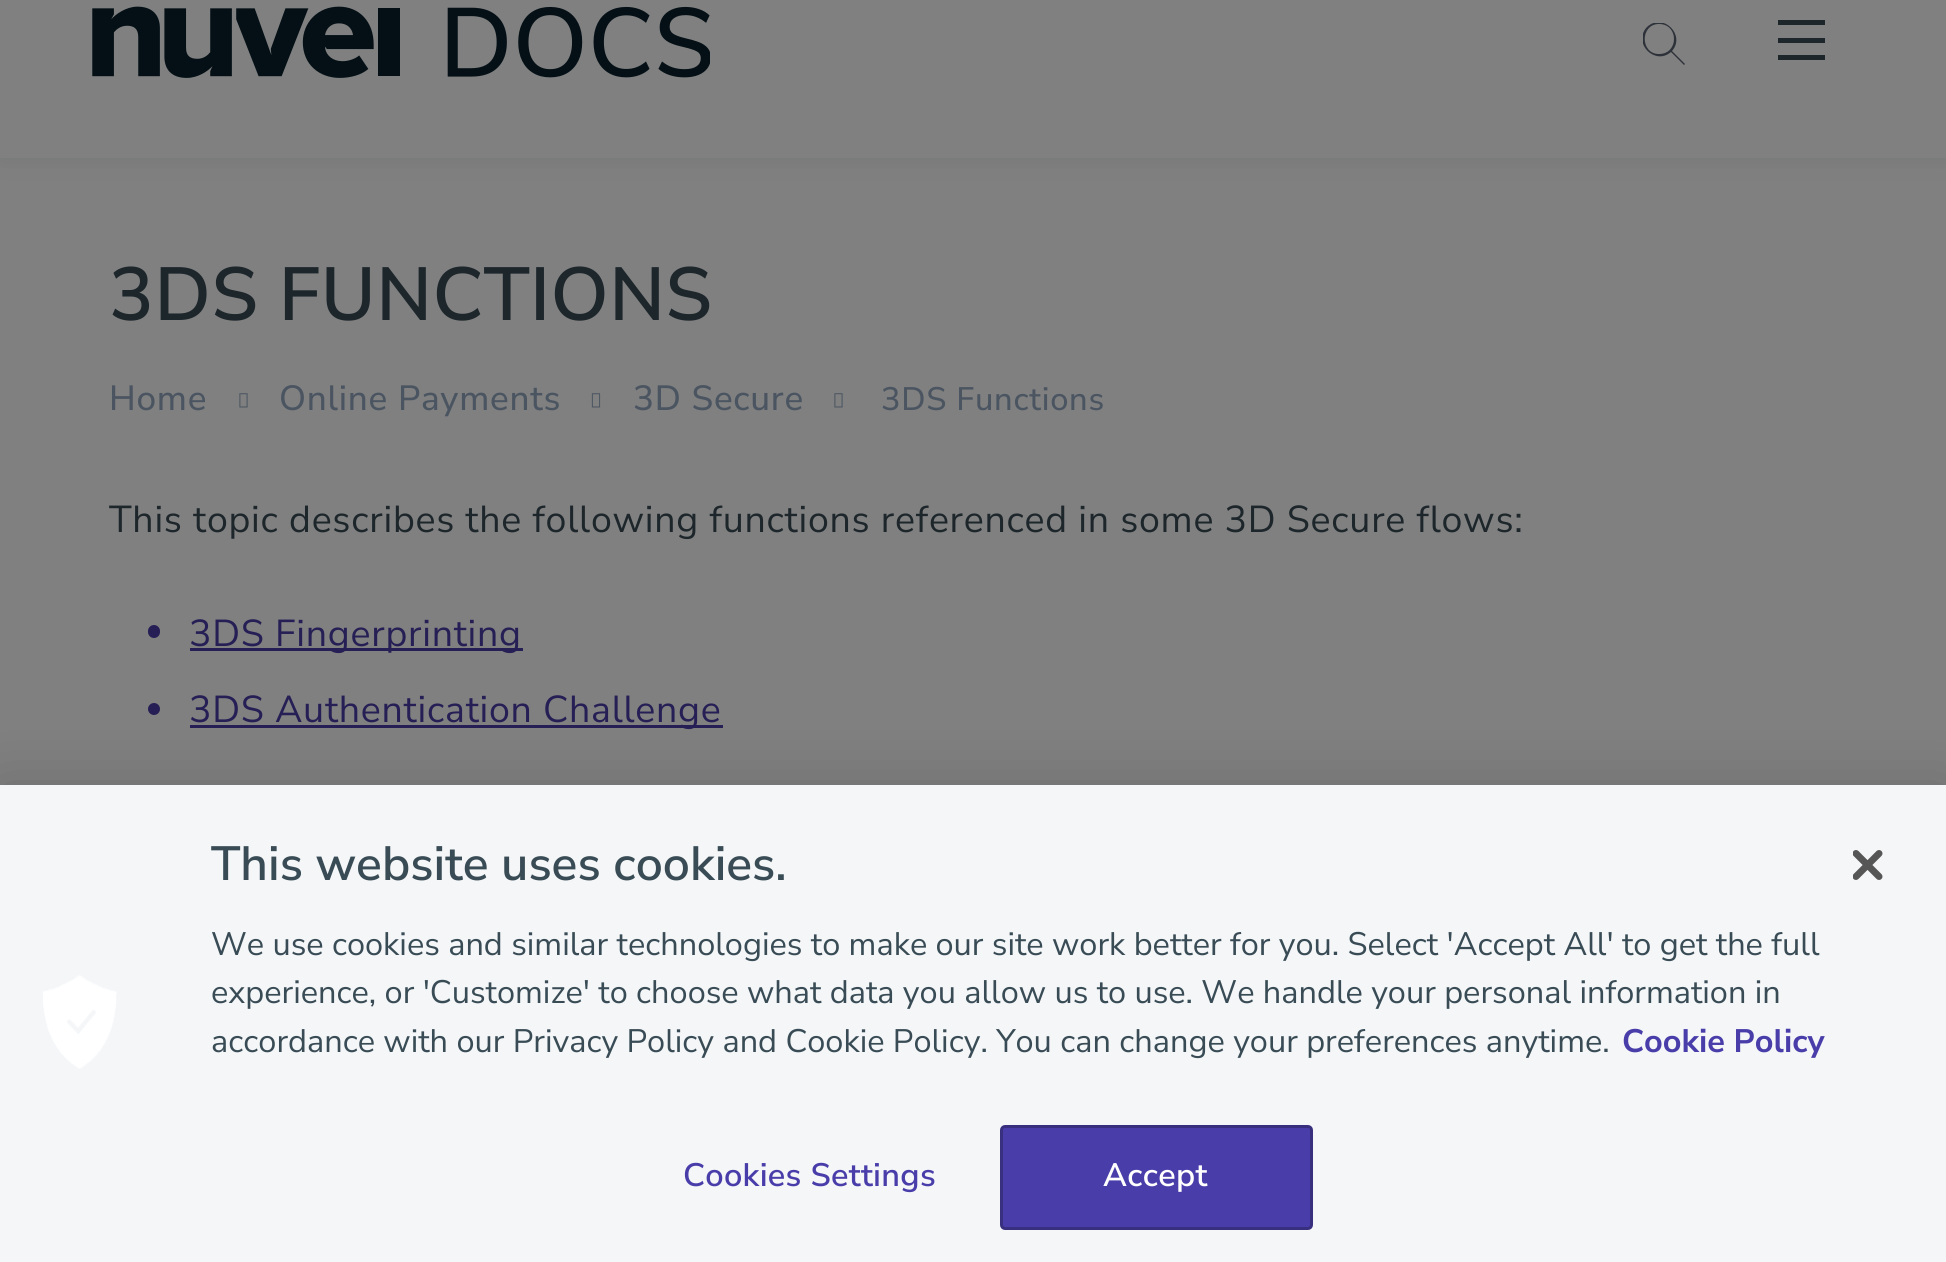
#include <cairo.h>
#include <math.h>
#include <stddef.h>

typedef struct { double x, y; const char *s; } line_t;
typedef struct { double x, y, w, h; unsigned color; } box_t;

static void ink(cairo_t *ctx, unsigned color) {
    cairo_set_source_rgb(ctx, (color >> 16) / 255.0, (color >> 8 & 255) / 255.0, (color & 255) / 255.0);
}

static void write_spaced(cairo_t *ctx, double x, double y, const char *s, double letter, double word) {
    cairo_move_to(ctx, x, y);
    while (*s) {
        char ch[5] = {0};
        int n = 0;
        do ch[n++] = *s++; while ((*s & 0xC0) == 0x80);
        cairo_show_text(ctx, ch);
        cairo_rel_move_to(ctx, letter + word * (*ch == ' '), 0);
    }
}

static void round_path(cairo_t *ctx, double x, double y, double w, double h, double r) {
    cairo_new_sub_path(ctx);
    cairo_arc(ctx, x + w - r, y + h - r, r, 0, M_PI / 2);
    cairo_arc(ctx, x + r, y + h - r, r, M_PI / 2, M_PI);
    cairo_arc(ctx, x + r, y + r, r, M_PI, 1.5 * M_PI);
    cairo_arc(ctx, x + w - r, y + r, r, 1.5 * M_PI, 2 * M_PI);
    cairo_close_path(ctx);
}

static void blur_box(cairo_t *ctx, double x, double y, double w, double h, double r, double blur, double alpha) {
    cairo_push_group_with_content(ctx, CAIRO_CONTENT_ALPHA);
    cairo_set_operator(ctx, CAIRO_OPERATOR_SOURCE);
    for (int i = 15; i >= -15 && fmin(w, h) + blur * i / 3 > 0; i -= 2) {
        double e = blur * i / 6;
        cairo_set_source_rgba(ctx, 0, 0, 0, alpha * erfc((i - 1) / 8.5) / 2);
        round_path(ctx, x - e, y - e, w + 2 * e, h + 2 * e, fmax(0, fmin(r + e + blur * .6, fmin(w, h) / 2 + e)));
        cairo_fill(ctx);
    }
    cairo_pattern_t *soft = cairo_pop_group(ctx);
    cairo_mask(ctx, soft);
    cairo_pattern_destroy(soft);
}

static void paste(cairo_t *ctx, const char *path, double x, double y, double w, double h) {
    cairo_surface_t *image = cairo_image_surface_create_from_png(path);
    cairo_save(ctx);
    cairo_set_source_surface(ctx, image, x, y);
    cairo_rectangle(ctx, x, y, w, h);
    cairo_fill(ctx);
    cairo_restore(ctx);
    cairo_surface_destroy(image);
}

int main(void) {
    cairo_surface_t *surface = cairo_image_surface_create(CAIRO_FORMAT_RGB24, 1946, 1262);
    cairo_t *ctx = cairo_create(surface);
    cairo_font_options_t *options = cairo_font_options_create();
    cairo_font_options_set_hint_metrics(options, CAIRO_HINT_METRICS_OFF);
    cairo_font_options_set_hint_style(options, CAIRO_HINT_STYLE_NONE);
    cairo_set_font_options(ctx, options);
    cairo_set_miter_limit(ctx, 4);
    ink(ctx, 0x808080);
    cairo_paint(ctx);
    ink(ctx, 0x272E38);
    blur_box(ctx, 0, -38, 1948, 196, 0, 12.5, 0.12);
    ink(ctx, 0x808080);
    cairo_rectangle(ctx, 0, 0, 1946, 158);
    cairo_fill(ctx);
    paste(ctx, "media/1.png", 92, 6, 618, 72);
    cairo_save(ctx);
    cairo_rectangle(ctx, 1643, 23, 42, 42);
    cairo_clip(ctx);
    ink(ctx, 0x2D323A);
    cairo_set_fill_rule(ctx, CAIRO_FILL_RULE_EVEN_ODD);
    cairo_new_path(ctx);
    cairo_move_to(ctx, 1671, 52);
    cairo_curve_to(ctx, 1655, 66, 1632, 43, 1647, 27);
    cairo_curve_to(ctx, 1663, 12, 1686, 35, 1672, 51);
    cairo_line_to(ctx, 1685, 64);
    cairo_line_to(ctx, 1684, 65);
    cairo_close_path(ctx);
    cairo_move_to(ctx, 1659, 24);
    cairo_curve_to(ctx, 1679, 24, 1679, 54, 1659, 54);
    cairo_curve_to(ctx, 1640, 54, 1640, 24, 1659, 24);
    cairo_close_path(ctx);
    cairo_fill(ctx);
    cairo_restore(ctx);
    {
        static const box_t items[] = {
            {1778, 20, 47, 5, 0x1D262B},
            {1778, 38, 47, 5, 0x1D262B},
            {1778, 55, 47, 5, 0x1D262B},
        };
        for (size_t i = 0; i < sizeof items / sizeof *items; i++) {
            ink(ctx, items[i].color);
            cairo_rectangle(ctx, items[i].x, items[i].y, items[i].w, items[i].h);
            cairo_fill(ctx);
        }
    }
    cairo_select_font_face(ctx, "Nunito Sans SemiBold", CAIRO_FONT_SLANT_NORMAL, CAIRO_FONT_WEIGHT_NORMAL);
    cairo_set_font_size(ctx, 75);
    write_spaced(ctx, 109, 320, "3DS FUNCTIONS", 0.5, 0);
    cairo_select_font_face(ctx, "Nunito Sans Medium", CAIRO_FONT_SLANT_NORMAL, CAIRO_FONT_WEIGHT_NORMAL);
    cairo_set_font_size(ctx, 35);
    ink(ctx, 0x4B5561);
    write_spaced(ctx, 109, 410, "Home", 0.75, 0);
    paste(ctx, "media/2.png", 239, 393, 9, 15);
    write_spaced(ctx, 279, 410, "Online Payments", 0.75, 0);
    paste(ctx, "media/3.png", 591, 393, 10, 15);
    write_spaced(ctx, 633, 410, "3D Secure", 0.75, 0);
    paste(ctx, "media/2.png", 834, 393, 9, 15);
    cairo_set_font_size(ctx, 32.5);
    write_spaced(ctx, 881, 410, "3DS Functions", 0.75, 0);
    cairo_select_font_face(ctx, "Nunito Sans", CAIRO_FONT_SLANT_NORMAL, CAIRO_FONT_WEIGHT_NORMAL);
    cairo_set_font_size(ctx, 37.5);
    ink(ctx, 0x1D262B);
    write_spaced(ctx, 109, 532, "This topic describes the following functions referenced in some 3D Secure flows:", 0.75, 0);
    ink(ctx, 0x251F55);
    round_path(ctx, 148, 625, 12, 13, 6);
    cairo_fill(ctx);
    cairo_rectangle(ctx, 190, 648, 333, 3);
    cairo_fill(ctx);
    write_spaced(ctx, 189, 646, "3DS Fingerprinting", 0.75, 0);
    cairo_new_path(ctx);
    cairo_arc(ctx, 154, 709, 6, 0, 2 * M_PI);
    cairo_fill(ctx);
    cairo_rectangle(ctx, 190, 725, 533, 3);
    cairo_fill(ctx);
    write_spaced(ctx, 189, 722, "3DS Authentication Challenge", 0.75, 0);
    ink(ctx, 0x000000);
    blur_box(ctx, 0, 785, 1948, 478, 0, 30, 0.15);
    ink(ctx, 0xF4F6F8);
    cairo_rectangle(ctx, 0, 785, 1946, 477);
    cairo_fill(ctx);
    paste(ctx, "media/4.png", 42, 975, 75, 94);
    cairo_select_font_face(ctx, "Nunito Sans SemiBold", CAIRO_FONT_SLANT_NORMAL, CAIRO_FONT_WEIGHT_NORMAL);
    cairo_set_font_size(ctx, 48);
    ink(ctx, 0x394C56);
    cairo_move_to(ctx, 211, 880);
    cairo_show_text(ctx, "This website uses cookies.");
    cairo_select_font_face(ctx, "Nunito Sans", CAIRO_FONT_SLANT_NORMAL, CAIRO_FONT_WEIGHT_NORMAL);
    cairo_set_font_size(ctx, 32.5);
    {
        static const line_t items[] = {
            {211, 955, "We use cookies and similar technologies to make our site work better for you. Select 'Accept All' to get the full"},
            {211, 1003, "experience, or 'Customize' to choose what data you allow us to use. We handle your personal information in"},
            {211, 1052, "accordance with our Privacy Policy and Cookie Policy. You can change your preferences anytime."},
        };
        for (size_t i = 0; i < sizeof items / sizeof *items; i++) {
            cairo_move_to(ctx, items[i].x, items[i].y);
            cairo_show_text(ctx, items[i].s);
        }
    }
    cairo_select_font_face(ctx, "Nunito Sans", CAIRO_FONT_SLANT_NORMAL, CAIRO_FONT_WEIGHT_BOLD);
    ink(ctx, 0x493DAA);
    cairo_move_to(ctx, 1622, 1052);
    cairo_show_text(ctx, "Cookie Policy");
    cairo_select_font_face(ctx, "Nunito Sans SemiBold", CAIRO_FONT_SLANT_NORMAL, CAIRO_FONT_WEIGHT_NORMAL);
    write_spaced(ctx, 683, 1186, "Cookies Settings", 0.3, 0);
    round_path(ctx, 1001.5, 1126.5, 310, 102, 3.5);
    cairo_fill_preserve(ctx);
    ink(ctx, 0x382F7E);
    cairo_set_line_width(ctx, 3);
    cairo_stroke(ctx);
    ink(ctx, 0xFFFFFF);
    write_spaced(ctx, 1103, 1186, "Accept", 0.3, 0);
    paste(ctx, "media/5.png", 1853, 850, 30, 30);
    cairo_surface_write_to_png(surface, "image.png");
    cairo_font_options_destroy(options);
    cairo_destroy(ctx);
    cairo_surface_destroy(surface);
    return 0;
}
